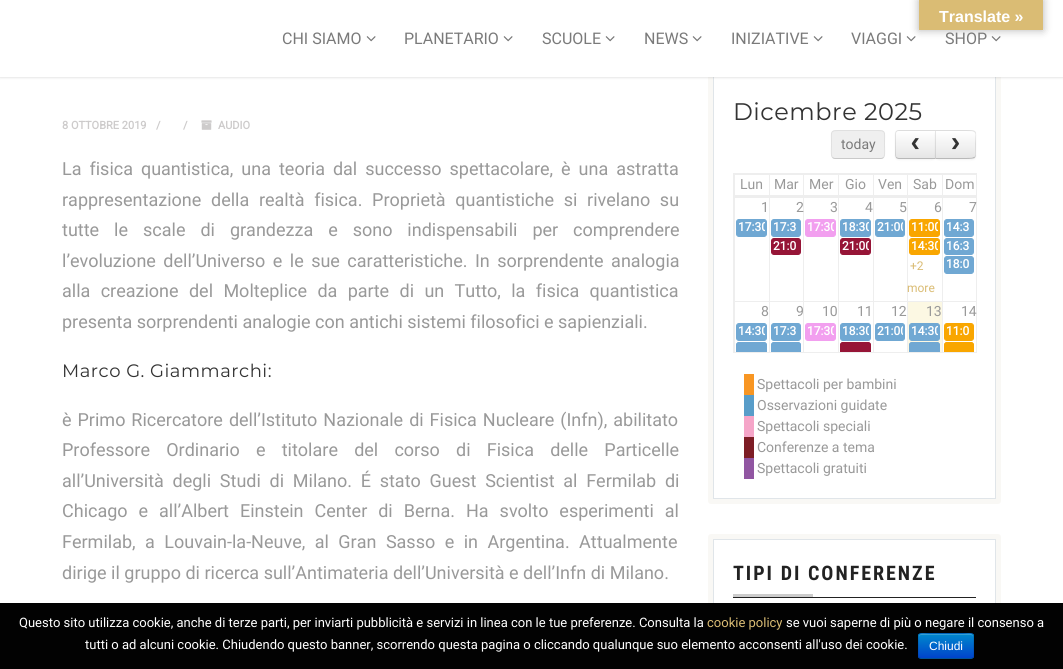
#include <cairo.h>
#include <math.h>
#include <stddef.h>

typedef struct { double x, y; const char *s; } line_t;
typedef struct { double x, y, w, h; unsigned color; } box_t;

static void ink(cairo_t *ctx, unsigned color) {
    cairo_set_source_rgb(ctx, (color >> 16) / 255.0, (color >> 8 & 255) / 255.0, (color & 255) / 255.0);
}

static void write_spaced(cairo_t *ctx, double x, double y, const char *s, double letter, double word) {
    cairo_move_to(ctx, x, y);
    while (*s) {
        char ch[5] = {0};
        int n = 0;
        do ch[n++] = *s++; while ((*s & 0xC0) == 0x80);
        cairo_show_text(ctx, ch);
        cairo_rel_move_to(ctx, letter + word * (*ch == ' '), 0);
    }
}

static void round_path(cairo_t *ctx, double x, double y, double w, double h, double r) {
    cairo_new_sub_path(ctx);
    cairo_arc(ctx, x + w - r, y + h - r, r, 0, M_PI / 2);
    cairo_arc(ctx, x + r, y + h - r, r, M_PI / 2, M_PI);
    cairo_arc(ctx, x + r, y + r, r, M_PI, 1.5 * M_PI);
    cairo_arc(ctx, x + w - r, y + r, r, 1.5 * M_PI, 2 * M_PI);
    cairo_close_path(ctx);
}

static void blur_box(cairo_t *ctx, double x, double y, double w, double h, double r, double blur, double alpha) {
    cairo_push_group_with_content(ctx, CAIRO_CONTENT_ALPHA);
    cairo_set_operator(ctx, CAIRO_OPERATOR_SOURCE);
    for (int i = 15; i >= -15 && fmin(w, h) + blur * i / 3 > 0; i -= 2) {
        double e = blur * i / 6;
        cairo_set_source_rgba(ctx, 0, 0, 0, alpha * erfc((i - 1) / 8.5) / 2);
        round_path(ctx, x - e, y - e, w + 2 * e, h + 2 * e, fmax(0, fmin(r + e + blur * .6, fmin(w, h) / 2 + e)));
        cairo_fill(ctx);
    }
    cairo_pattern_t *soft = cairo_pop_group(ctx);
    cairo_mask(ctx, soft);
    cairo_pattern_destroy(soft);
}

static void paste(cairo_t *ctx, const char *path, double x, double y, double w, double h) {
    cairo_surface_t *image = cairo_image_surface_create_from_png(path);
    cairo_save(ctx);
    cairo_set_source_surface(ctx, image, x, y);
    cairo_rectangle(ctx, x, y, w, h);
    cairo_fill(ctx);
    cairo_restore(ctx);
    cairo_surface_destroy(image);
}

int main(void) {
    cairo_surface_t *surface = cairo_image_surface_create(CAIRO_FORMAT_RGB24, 1063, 669);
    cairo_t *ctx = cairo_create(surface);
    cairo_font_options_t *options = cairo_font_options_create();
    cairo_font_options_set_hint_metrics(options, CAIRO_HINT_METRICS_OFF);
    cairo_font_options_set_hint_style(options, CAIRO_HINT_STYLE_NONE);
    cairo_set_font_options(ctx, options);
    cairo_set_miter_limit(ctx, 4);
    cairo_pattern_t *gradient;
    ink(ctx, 0xFFFFFF);
    cairo_paint(ctx);
    cairo_rectangle(ctx, 713.5, 13.5, 282, 485);
    ink(ctx, 0xE0E5E9);
    cairo_set_line_width(ctx, 1);
    cairo_stroke(ctx);
    round_path(ctx, 710.5, 10.5, 288, 491, 0.5);
    ink(ctx, 0xF9F8F5);
    cairo_set_line_width(ctx, 5);
    cairo_stroke(ctx);
    ink(ctx, 0x000000);
    blur_box(ctx, 0, 1, 1063, 77, 0, 1, 0.1);
    ink(ctx, 0xFFFFFF);
    cairo_rectangle(ctx, 0, 0, 1063, 77);
    cairo_fill(ctx);
    paste(ctx, "media/1.png", 906, 36, 10, 6);
    paste(ctx, "media/1.png", 991, 36, 10, 6);
    ink(ctx, 0x000000);
    blur_box(ctx, 919, 0, 124, 30, 0, 4.5, 0.3);
    ink(ctx, 0xDABC74);
    cairo_rectangle(ctx, 919, 0, 124, 30);
    cairo_fill(ctx);
    cairo_select_font_face(ctx, "Liberation Sans", CAIRO_FONT_SLANT_NORMAL, CAIRO_FONT_WEIGHT_BOLD);
    cairo_set_font_size(ctx, 16);
    ink(ctx, 0xFFFFFF);
    cairo_move_to(ctx, 939, 22);
    cairo_show_text(ctx, "Translate »");
    cairo_select_font_face(ctx, "Roboto", CAIRO_FONT_SLANT_NORMAL, CAIRO_FONT_WEIGHT_NORMAL);
    ink(ctx, 0x7A7A7A);
    cairo_move_to(ctx, 282, 44);
    cairo_show_text(ctx, "CHI SIAMO");
    paste(ctx, "media/1.png", 366, 36, 10, 6);
    cairo_move_to(ctx, 404, 44);
    cairo_show_text(ctx, "PLANETARIO");
    paste(ctx, "media/1.png", 503, 36, 10, 6);
    cairo_move_to(ctx, 542, 44);
    cairo_show_text(ctx, "SCUOLE");
    paste(ctx, "media/1.png", 605, 36, 10, 6);
    cairo_move_to(ctx, 644, 44);
    cairo_show_text(ctx, "NEWS");
    paste(ctx, "media/1.png", 692, 36, 10, 6);
    cairo_move_to(ctx, 731, 44);
    cairo_show_text(ctx, "INIZIATIVE");
    paste(ctx, "media/1.png", 813, 36, 10, 6);
    cairo_move_to(ctx, 851, 44);
    cairo_show_text(ctx, "VIAGGI");
    cairo_move_to(ctx, 945, 44);
    cairo_show_text(ctx, "SHOP");
    cairo_select_font_face(ctx, "Roboto", CAIRO_FONT_SLANT_NORMAL, CAIRO_FONT_WEIGHT_BOLD);
    cairo_set_font_size(ctx, 11);
    ink(ctx, 0xCDCBCB);
    {
        static const line_t items[] = {
            {62, 129, "8 OTTOBRE 2019"},
            {156, 129, "/"},
            {183, 129, "/"},
        };
        for (size_t i = 0; i < sizeof items / sizeof *items; i++) {
            cairo_move_to(ctx, items[i].x, items[i].y);
            cairo_show_text(ctx, items[i].s);
        }
    }
    paste(ctx, "media/2.png", 201, 120, 11, 10);
    cairo_move_to(ctx, 218, 129);
    cairo_show_text(ctx, "AUDIO");
    cairo_select_font_face(ctx, "Roboto", CAIRO_FONT_SLANT_NORMAL, CAIRO_FONT_WEIGHT_NORMAL);
    cairo_set_font_size(ctx, 18);
    ink(ctx, 0x999999);
    write_spaced(ctx, 62, 175, "La fisica quantistica, una teoria dal successo spettacolare, è una astratta", 0, 3.5);
    write_spaced(ctx, 62, 206, "rappresentazione della realtà fisica. Proprietà quantistiche si rivelano su", 0, 5.25);
    write_spaced(ctx, 62, 236, "tutte le scale di grandezza e sono indispensabili per comprendere", 0, 10.5);
    write_spaced(ctx, 62, 267, "l’evoluzione dell’Universo e le sue caratteristiche. In sorprendente analogia", 0, 3);
    write_spaced(ctx, 62, 297, "alla creazione del Molteplice da parte di un Tutto, la fisica quantistica", 0, 5.9);
    cairo_move_to(ctx, 62, 328);
    cairo_show_text(ctx, "presenta sorprendenti analogie con antichi sistemi filosofici e sapienziali.");
    cairo_select_font_face(ctx, "Montserrat Thin", CAIRO_FONT_SLANT_NORMAL, CAIRO_FONT_WEIGHT_NORMAL);
    ink(ctx, 0x333333);
    write_spaced(ctx, 62, 377, "Marco G. Giammarchi:", 0.5, 0);
    cairo_select_font_face(ctx, "Roboto", CAIRO_FONT_SLANT_NORMAL, CAIRO_FONT_WEIGHT_NORMAL);
    ink(ctx, 0x999999);
    write_spaced(ctx, 62, 426, "è Primo Ricercatore dell’Istituto Nazionale di Fisica Nucleare (Infn), abilitato", 0, 1.5);
    write_spaced(ctx, 62, 456, "Professore Ordinario e titolare del corso di Fisica delle Particelle", 0, 11.75);
    write_spaced(ctx, 62, 487, "all’Università degli Studi di Milano. É stato Guest Scientist al Fermilab di", 0, 4.25);
    write_spaced(ctx, 62, 517, "Chicago e all’Albert Einstein Center di Berna. Ha svolto esperimenti al", 0, 6.5);
    write_spaced(ctx, 62, 548, "Fermilab, a Louvain-la-Neuve, al Gran Sasso e in Argentina. Attualmente", 0, 5);
    cairo_move_to(ctx, 62, 579);
    cairo_show_text(ctx, "dirige il gruppo di ricerca sull’Antimateria dell’Università e dell’Infn di Milano.");
    cairo_select_font_face(ctx, "Montserrat Thin", CAIRO_FONT_SLANT_NORMAL, CAIRO_FONT_WEIGHT_NORMAL);
    cairo_set_font_size(ctx, 24);
    ink(ctx, 0x333333);
    write_spaced(ctx, 733, 120, "Dicembre 2025", 0.5, 0);
    ink(ctx, 0xEFEFEF);
    round_path(ctx, 831, 130, 54, 29, 4);
    cairo_fill(ctx);
    cairo_new_path(ctx);
    cairo_move_to(ctx, 883.5, 157.5);
    cairo_curve_to(ctx, 883, 158, 882, 158.5, 881, 158.5);
    cairo_line_to(ctx, 835, 158.5);
    cairo_curve_to(ctx, 834, 158.5, 833, 158, 832.5, 157.5);
    cairo_set_source_rgba(ctx, 0.349, 0.349, 0.349, 0.25);
    cairo_set_line_width(ctx, 1);
    cairo_stroke(ctx);
    cairo_new_path(ctx);
    cairo_move_to(ctx, 832.5, 157.5);
    cairo_curve_to(ctx, 830.5, 155.5, 831.5, 147, 831.5, 144.5);
    cairo_curve_to(ctx, 831.5, 130.5, 829, 130.5, 842.5, 130.5);
    cairo_line_to(ctx, 873.5, 130.5);
    cairo_curve_to(ctx, 887, 130.5, 884.5, 130.5, 884.5, 144.5);
    cairo_curve_to(ctx, 884.5, 147, 885.5, 155.5, 883.5, 157.5);
    cairo_set_source_rgba(ctx, 0.349, 0.349, 0.349, 0.1);
    cairo_stroke(ctx);
    cairo_select_font_face(ctx, "Roboto", CAIRO_FONT_SLANT_NORMAL, CAIRO_FONT_WEIGHT_NORMAL);
    cairo_set_font_size(ctx, 14);
    ink(ctx, 0x7A7A7A);
    cairo_move_to(ctx, 841, 149);
    cairo_show_text(ctx, "today");
    ink(ctx, 0x000000);
    blur_box(ctx, 895, 131, 41, 29, 4, 1, 0.05);
    ink(ctx, 0xF5F5F5);
    cairo_new_path(ctx);
    cairo_move_to(ctx, 899, 130);
    cairo_line_to(ctx, 936, 130);
    cairo_line_to(ctx, 936, 159);
    cairo_line_to(ctx, 899, 159);
    cairo_curve_to(ctx, 897, 159, 895, 157, 895, 155);
    cairo_line_to(ctx, 895, 134);
    cairo_curve_to(ctx, 895, 132, 897, 130, 899, 130);
    cairo_close_path(ctx);
    cairo_fill(ctx);
    cairo_save(ctx);
    cairo_new_path(ctx);
    cairo_move_to(ctx, 899, 130);
    cairo_line_to(ctx, 936, 130);
    cairo_line_to(ctx, 936, 159);
    cairo_line_to(ctx, 899, 159);
    cairo_curve_to(ctx, 897, 159, 895, 157, 895, 155);
    cairo_line_to(ctx, 895, 134);
    cairo_curve_to(ctx, 895, 132, 897, 130, 899, 130);
    cairo_close_path(ctx);
    cairo_clip(ctx);
    gradient = cairo_pattern_create_linear(916, 131, 916, 158);
    cairo_pattern_add_color_stop_rgba(gradient, 0, 1, 1, 1, 1);
    cairo_pattern_add_color_stop_rgba(gradient, 1, 0.902, 0.902, 0.902, 1);
    cairo_set_source(ctx, gradient);
    cairo_pattern_destroy(gradient);
    cairo_rectangle(ctx, 895, 131, 40, 27);
    cairo_fill(ctx);
    cairo_restore(ctx);
    cairo_set_source_rgba(ctx, 0, 0, 0, 0.1);
    cairo_new_path(ctx);
    cairo_move_to(ctx, 899, 130);
    cairo_curve_to(ctx, 898, 130, 897, 130.5, 896, 131);
    cairo_line_to(ctx, 897, 132);
    cairo_curve_to(ctx, 897, 131, 898, 131, 899, 131);
    cairo_line_to(ctx, 935, 131);
    cairo_line_to(ctx, 936, 130);
    cairo_close_path(ctx);
    cairo_fill(ctx);
    cairo_set_source_rgba(ctx, 0, 0, 0, 0.25);
    cairo_new_path(ctx);
    cairo_move_to(ctx, 936, 159);
    cairo_line_to(ctx, 935, 158);
    cairo_line_to(ctx, 899, 158);
    cairo_curve_to(ctx, 898, 158, 897, 158, 897, 157);
    cairo_line_to(ctx, 896, 158);
    cairo_curve_to(ctx, 897, 158.5, 898, 159, 899, 159);
    cairo_close_path(ctx);
    cairo_fill(ctx);
    cairo_set_source_rgba(ctx, 0, 0, 0, 0.1);
    cairo_new_path(ctx);
    cairo_move_to(ctx, 895, 134);
    cairo_line_to(ctx, 895, 155);
    cairo_curve_to(ctx, 895, 156, 895.5, 157, 896, 158);
    cairo_line_to(ctx, 897, 157);
    cairo_curve_to(ctx, 896, 157, 896, 156, 896, 155);
    cairo_line_to(ctx, 896, 134);
    cairo_curve_to(ctx, 896, 133, 896, 132, 897, 132);
    cairo_line_to(ctx, 896, 131);
    cairo_curve_to(ctx, 895.5, 132, 895, 133, 895, 134);
    cairo_close_path(ctx);
    cairo_fill(ctx);
    cairo_select_font_face(ctx, "Liberation Mono", CAIRO_FONT_SLANT_NORMAL, CAIRO_FONT_WEIGHT_BOLD);
    cairo_set_font_size(ctx, 28);
    ink(ctx, 0x333333);
    cairo_move_to(ctx, 907, 151);
    cairo_show_text(ctx, "‹");
    ink(ctx, 0x000000);
    blur_box(ctx, 935, 131, 41, 29, 4, 1, 0.05);
    ink(ctx, 0xF5F5F5);
    cairo_new_path(ctx);
    cairo_move_to(ctx, 935, 130);
    cairo_line_to(ctx, 972, 130);
    cairo_curve_to(ctx, 974, 130, 976, 132, 976, 134);
    cairo_line_to(ctx, 976, 155);
    cairo_curve_to(ctx, 976, 157, 974, 159, 972, 159);
    cairo_line_to(ctx, 935, 159);
    cairo_close_path(ctx);
    cairo_fill(ctx);
    cairo_save(ctx);
    cairo_new_path(ctx);
    cairo_move_to(ctx, 935, 130);
    cairo_line_to(ctx, 972, 130);
    cairo_curve_to(ctx, 974, 130, 976, 132, 976, 134);
    cairo_line_to(ctx, 976, 155);
    cairo_curve_to(ctx, 976, 157, 974, 159, 972, 159);
    cairo_line_to(ctx, 935, 159);
    cairo_close_path(ctx);
    cairo_clip(ctx);
    gradient = cairo_pattern_create_linear(956, 131, 956, 158);
    cairo_pattern_add_color_stop_rgba(gradient, 0, 1, 1, 1, 1);
    cairo_pattern_add_color_stop_rgba(gradient, 1, 0.902, 0.902, 0.902, 1);
    cairo_set_source(ctx, gradient);
    cairo_pattern_destroy(gradient);
    cairo_rectangle(ctx, 935, 131, 41, 27);
    cairo_fill(ctx);
    cairo_restore(ctx);
    cairo_set_source_rgba(ctx, 0, 0, 0, 0.1);
    cairo_new_path(ctx);
    cairo_move_to(ctx, 935, 130);
    cairo_line_to(ctx, 936, 131);
    cairo_line_to(ctx, 966, 131);
    cairo_curve_to(ctx, 970.5, 131, 973, 131, 974, 132);
    cairo_line_to(ctx, 975, 131);
    cairo_curve_to(ctx, 973.5, 130.5, 971, 130, 966, 130);
    cairo_close_path(ctx);
    cairo_fill(ctx);
    cairo_new_path(ctx);
    cairo_move_to(ctx, 976, 156);
    cairo_line_to(ctx, 975, 158);
    cairo_line_to(ctx, 974, 157);
    cairo_curve_to(ctx, 975, 156.5, 975, 155.5, 975.5, 155);
    cairo_line_to(ctx, 975, 144);
    cairo_line_to(ctx, 975.5, 134);
    cairo_curve_to(ctx, 975, 133, 975, 132.5, 974, 132);
    cairo_line_to(ctx, 975, 131);
    cairo_line_to(ctx, 976, 133);
    cairo_close_path(ctx);
    cairo_fill(ctx);
    cairo_set_source_rgba(ctx, 0, 0, 0, 0.25);
    cairo_new_path(ctx);
    cairo_move_to(ctx, 966, 159);
    cairo_curve_to(ctx, 970.5, 159, 973.5, 158.5, 975, 158);
    cairo_line_to(ctx, 974, 157);
    cairo_curve_to(ctx, 973, 158, 970.5, 158, 966, 158);
    cairo_line_to(ctx, 936, 158);
    cairo_line_to(ctx, 935, 159);
    cairo_close_path(ctx);
    cairo_fill(ctx);
    cairo_set_source_rgba(ctx, 0, 0, 0, 0.1);
    cairo_new_path(ctx);
    cairo_move_to(ctx, 935, 130);
    cairo_line_to(ctx, 935, 159);
    cairo_line_to(ctx, 936, 158);
    cairo_line_to(ctx, 936, 131);
    cairo_close_path(ctx);
    cairo_fill(ctx);
    ink(ctx, 0x333333);
    cairo_move_to(ctx, 947, 151);
    cairo_show_text(ctx, "›");
    {
        static const box_t items[] = {
            {733, 173, 244, 1, 0xEEEEEE},
            {733, 196, 244, 1, 0xEEEEEE},
            {976, 196, 1, 157, 0xEEEEEE},
            {976, 173, 1, 24, 0xEEEEEE},
            {733, 352, 244, 1, 0xEEEEEE},
            {733, 196, 1, 157, 0xEEEEEE},
            {733, 173, 1, 24, 0xEEEEEE},
            {942, 174, 35, 1, 0xEEEEEE},
            {942, 195, 35, 1, 0xEEEEEE},
            {942, 174, 1, 22, 0xEEEEEE},
            {907, 174, 36, 1, 0xEEEEEE},
            {907, 195, 36, 1, 0xEEEEEE},
            {907, 174, 1, 22, 0xEEEEEE},
            {873, 174, 35, 1, 0xEEEEEE},
            {873, 195, 35, 1, 0xEEEEEE},
            {873, 174, 1, 22, 0xEEEEEE},
            {838, 174, 36, 1, 0xEEEEEE},
            {838, 195, 36, 1, 0xEEEEEE},
            {838, 174, 1, 22, 0xEEEEEE},
            {803, 174, 36, 1, 0xEEEEEE},
            {803, 195, 36, 1, 0xEEEEEE},
            {803, 174, 1, 22, 0xEEEEEE},
            {769, 174, 35, 1, 0xEEEEEE},
            {769, 195, 35, 1, 0xEEEEEE},
            {769, 174, 1, 22, 0xEEEEEE},
            {734, 174, 36, 1, 0xEEEEEE},
            {734, 195, 36, 1, 0xEEEEEE},
            {734, 174, 1, 22, 0xEEEEEE},
        };
        for (size_t i = 0; i < sizeof items / sizeof *items; i++) {
            ink(ctx, items[i].color);
            cairo_rectangle(ctx, items[i].x, items[i].y, items[i].w, items[i].h);
            cairo_fill(ctx);
        }
    }
    cairo_select_font_face(ctx, "Roboto", CAIRO_FONT_SLANT_NORMAL, CAIRO_FONT_WEIGHT_NORMAL);
    cairo_set_font_size(ctx, 14);
    ink(ctx, 0x999999);
    {
        static const line_t items[] = {
            {740, 189, "Lun"},
            {774, 189, "Mar"},
            {809, 189, "Mer"},
            {845, 189, "Gio"},
            {878, 189, "Ven"},
            {913, 189, "Sab"},
            {945, 189, "Dom"},
        };
        for (size_t i = 0; i < sizeof items / sizeof *items; i++) {
            cairo_move_to(ctx, items[i].x, items[i].y);
            cairo_show_text(ctx, items[i].s);
        }
    }
    {
        static const box_t items[] = {
            {942, 197, 34, 1, 0xEEEEEE},
            {942, 301, 34, 1, 0xEEEEEE},
            {942, 197, 1, 105, 0xEEEEEE},
            {907, 197, 36, 1, 0xEEEEEE},
            {907, 301, 36, 1, 0xEEEEEE},
            {907, 197, 1, 105, 0xEEEEEE},
            {873, 197, 35, 1, 0xEEEEEE},
            {873, 301, 35, 1, 0xEEEEEE},
            {873, 197, 1, 105, 0xEEEEEE},
            {838, 197, 36, 1, 0xEEEEEE},
            {838, 301, 36, 1, 0xEEEEEE},
            {838, 197, 1, 105, 0xEEEEEE},
            {803, 197, 36, 1, 0xEEEEEE},
            {803, 301, 36, 1, 0xEEEEEE},
            {803, 197, 1, 105, 0xEEEEEE},
            {769, 197, 35, 1, 0xEEEEEE},
            {769, 301, 35, 1, 0xEEEEEE},
            {769, 197, 1, 105, 0xEEEEEE},
            {734, 197, 36, 1, 0xEEEEEE},
            {734, 301, 36, 1, 0xEEEEEE},
            {734, 197, 1, 155, 0xEEEEEE},
        };
        for (size_t i = 0; i < sizeof items / sizeof *items; i++) {
            ink(ctx, items[i].color);
            cairo_rectangle(ctx, items[i].x, items[i].y, items[i].w, items[i].h);
            cairo_fill(ctx);
        }
    }
    ink(ctx, 0x999999);
    {
        static const line_t items[] = {
            {761, 212, "1"},
            {796, 212, "2"},
            {830, 212, "3"},
            {865, 212, "4"},
            {899, 212, "5"},
            {934, 212, "6"},
            {969, 212, "7"},
        };
        for (size_t i = 0; i < sizeof items / sizeof *items; i++) {
            cairo_move_to(ctx, items[i].x, items[i].y);
            cairo_show_text(ctx, items[i].s);
        }
    }
    ink(ctx, 0x70A8D3);
    round_path(ctx, 736.5, 219.5, 30, 17, 2.5);
    cairo_fill_preserve(ctx);
    cairo_stroke(ctx);
    cairo_save(ctx);
    cairo_rectangle(ctx, 738, 220, 27, 16);
    cairo_clip(ctx);
    cairo_select_font_face(ctx, "Roboto", CAIRO_FONT_SLANT_NORMAL, CAIRO_FONT_WEIGHT_BOLD);
    cairo_set_font_size(ctx, 12);
    ink(ctx, 0xFFFFFF);
    cairo_move_to(ctx, 738, 231);
    cairo_show_text(ctx, "17:30");
    cairo_restore(ctx);
    round_path(ctx, 771.5, 219.5, 29, 17, 2.5);
    cairo_fill_preserve(ctx);
    cairo_stroke(ctx);
    cairo_select_font_face(ctx, "Roboto", CAIRO_FONT_SLANT_NORMAL, CAIRO_FONT_WEIGHT_BOLD);
    cairo_set_font_size(ctx, 12);
    ink(ctx, 0xFFFFFF);
    cairo_move_to(ctx, 773, 231);
    cairo_show_text(ctx, "17:3");
    ink(ctx, 0xF29FEF);
    round_path(ctx, 805.5, 219.5, 30, 17, 2.5);
    cairo_fill_preserve(ctx);
    cairo_stroke(ctx);
    cairo_save(ctx);
    cairo_rectangle(ctx, 807, 220, 27, 16);
    cairo_clip(ctx);
    ink(ctx, 0xFFFFFF);
    cairo_move_to(ctx, 807, 231);
    cairo_show_text(ctx, "17:30");
    cairo_restore(ctx);
    ink(ctx, 0x70A8D3);
    round_path(ctx, 840.5, 219.5, 30, 17, 2.5);
    cairo_fill_preserve(ctx);
    cairo_stroke(ctx);
    cairo_save(ctx);
    cairo_rectangle(ctx, 842, 220, 27, 16);
    cairo_clip(ctx);
    ink(ctx, 0xFFFFFF);
    cairo_move_to(ctx, 842, 231);
    cairo_show_text(ctx, "18:30");
    cairo_restore(ctx);
    round_path(ctx, 875.5, 219.5, 29, 17, 2.5);
    cairo_fill_preserve(ctx);
    cairo_stroke(ctx);
    cairo_save(ctx);
    cairo_rectangle(ctx, 877, 220, 26, 16);
    cairo_clip(ctx);
    ink(ctx, 0xFFFFFF);
    cairo_move_to(ctx, 877, 231);
    cairo_show_text(ctx, "21:00");
    cairo_restore(ctx);
    ink(ctx, 0xF9A600);
    round_path(ctx, 909.5, 219.5, 30, 17, 2.5);
    cairo_fill_preserve(ctx);
    cairo_stroke(ctx);
    cairo_save(ctx);
    cairo_rectangle(ctx, 911, 220, 27, 16);
    cairo_clip(ctx);
    ink(ctx, 0xFFFFFF);
    cairo_move_to(ctx, 911, 231);
    cairo_show_text(ctx, "11:00");
    cairo_restore(ctx);
    ink(ctx, 0x70A8D3);
    round_path(ctx, 944.5, 219.5, 29, 17, 2.5);
    cairo_fill_preserve(ctx);
    cairo_stroke(ctx);
    ink(ctx, 0xFFFFFF);
    cairo_move_to(ctx, 946, 231);
    cairo_show_text(ctx, "14:3");
    ink(ctx, 0x961537);
    round_path(ctx, 771.5, 238.5, 29, 16, 2.5);
    cairo_fill_preserve(ctx);
    cairo_stroke(ctx);
    ink(ctx, 0xFFFFFF);
    cairo_move_to(ctx, 773, 250);
    cairo_show_text(ctx, "21:0");
    ink(ctx, 0x961537);
    round_path(ctx, 840.5, 238.5, 30, 16, 2.5);
    cairo_fill_preserve(ctx);
    cairo_stroke(ctx);
    cairo_save(ctx);
    cairo_rectangle(ctx, 842, 239, 27, 15);
    cairo_clip(ctx);
    ink(ctx, 0xFFFFFF);
    cairo_move_to(ctx, 842, 250);
    cairo_show_text(ctx, "21:00");
    cairo_restore(ctx);
    ink(ctx, 0xF9A600);
    round_path(ctx, 909.5, 238.5, 30, 16, 2.5);
    cairo_fill_preserve(ctx);
    cairo_stroke(ctx);
    cairo_save(ctx);
    cairo_rectangle(ctx, 911, 239, 27, 15);
    cairo_clip(ctx);
    ink(ctx, 0xFFFFFF);
    cairo_move_to(ctx, 911, 250);
    cairo_show_text(ctx, "14:30");
    cairo_restore(ctx);
    ink(ctx, 0x70A8D3);
    round_path(ctx, 944.5, 238.5, 29, 16, 2.5);
    cairo_fill_preserve(ctx);
    cairo_stroke(ctx);
    ink(ctx, 0xFFFFFF);
    cairo_move_to(ctx, 946, 250);
    cairo_show_text(ctx, "16:3");
    cairo_select_font_face(ctx, "Roboto", CAIRO_FONT_SLANT_NORMAL, CAIRO_FONT_WEIGHT_NORMAL);
    ink(ctx, 0xDABC74);
    cairo_move_to(ctx, 910, 270);
    cairo_show_text(ctx, "+2");
    cairo_move_to(ctx, 907, 292);
    cairo_show_text(ctx, "more");
    ink(ctx, 0x70A8D3);
    round_path(ctx, 944.5, 256.5, 29, 17, 2.5);
    cairo_fill_preserve(ctx);
    cairo_stroke(ctx);
    cairo_select_font_face(ctx, "Roboto", CAIRO_FONT_SLANT_NORMAL, CAIRO_FONT_WEIGHT_BOLD);
    ink(ctx, 0xFFFFFF);
    cairo_move_to(ctx, 946, 268);
    cairo_show_text(ctx, "18:0");
    {
        static const box_t items[] = {
            {769, 301, 1, 51, 0xEEEEEE},
            {803, 301, 1, 51, 0xEEEEEE},
            {838, 301, 1, 51, 0xEEEEEE},
            {873, 301, 1, 51, 0xEEEEEE},
            {908, 302, 34, 50, 0xFCF8E3},
            {907, 301, 1, 51, 0xEEEEEE},
            {942, 301, 1, 51, 0xEEEEEE},
        };
        for (size_t i = 0; i < sizeof items / sizeof *items; i++) {
            ink(ctx, items[i].color);
            cairo_rectangle(ctx, items[i].x, items[i].y, items[i].w, items[i].h);
            cairo_fill(ctx);
        }
    }
    cairo_select_font_face(ctx, "Roboto", CAIRO_FONT_SLANT_NORMAL, CAIRO_FONT_WEIGHT_NORMAL);
    cairo_set_font_size(ctx, 14);
    ink(ctx, 0x999999);
    {
        static const line_t items[] = {
            {761, 316, "8"},
            {796, 316, "9"},
            {822, 316, "10"},
            {857, 316, "11"},
            {891, 316, "12"},
            {926, 316, "13"},
            {961, 316, "14"},
        };
        for (size_t i = 0; i < sizeof items / sizeof *items; i++) {
            cairo_move_to(ctx, items[i].x, items[i].y);
            cairo_show_text(ctx, items[i].s);
        }
    }
    ink(ctx, 0x70A8D3);
    round_path(ctx, 736.5, 323.5, 30, 17, 2.5);
    cairo_fill_preserve(ctx);
    cairo_stroke(ctx);
    cairo_save(ctx);
    cairo_rectangle(ctx, 738, 324, 27, 16);
    cairo_clip(ctx);
    cairo_select_font_face(ctx, "Roboto", CAIRO_FONT_SLANT_NORMAL, CAIRO_FONT_WEIGHT_BOLD);
    cairo_set_font_size(ctx, 12);
    ink(ctx, 0xFFFFFF);
    cairo_move_to(ctx, 738, 335);
    cairo_show_text(ctx, "14:30");
    cairo_restore(ctx);
    round_path(ctx, 771.5, 323.5, 29, 17, 2.5);
    cairo_fill_preserve(ctx);
    cairo_stroke(ctx);
    cairo_select_font_face(ctx, "Roboto", CAIRO_FONT_SLANT_NORMAL, CAIRO_FONT_WEIGHT_BOLD);
    cairo_set_font_size(ctx, 12);
    ink(ctx, 0xFFFFFF);
    cairo_move_to(ctx, 773, 335);
    cairo_show_text(ctx, "17:3");
    ink(ctx, 0xF29FEF);
    round_path(ctx, 805.5, 323.5, 30, 17, 2.5);
    cairo_fill_preserve(ctx);
    cairo_stroke(ctx);
    cairo_save(ctx);
    cairo_rectangle(ctx, 807, 324, 27, 16);
    cairo_clip(ctx);
    ink(ctx, 0xFFFFFF);
    cairo_move_to(ctx, 807, 335);
    cairo_show_text(ctx, "17:30");
    cairo_restore(ctx);
    ink(ctx, 0x70A8D3);
    round_path(ctx, 840.5, 323.5, 30, 17, 2.5);
    cairo_fill_preserve(ctx);
    cairo_stroke(ctx);
    cairo_save(ctx);
    cairo_rectangle(ctx, 842, 324, 27, 16);
    cairo_clip(ctx);
    ink(ctx, 0xFFFFFF);
    cairo_move_to(ctx, 842, 335);
    cairo_show_text(ctx, "18:30");
    cairo_restore(ctx);
    round_path(ctx, 875.5, 323.5, 29, 17, 2.5);
    cairo_fill_preserve(ctx);
    cairo_stroke(ctx);
    cairo_save(ctx);
    cairo_rectangle(ctx, 877, 324, 26, 16);
    cairo_clip(ctx);
    ink(ctx, 0xFFFFFF);
    cairo_move_to(ctx, 877, 335);
    cairo_show_text(ctx, "21:00");
    cairo_restore(ctx);
    round_path(ctx, 909.5, 323.5, 30, 17, 2.5);
    cairo_fill_preserve(ctx);
    cairo_stroke(ctx);
    cairo_save(ctx);
    cairo_rectangle(ctx, 911, 324, 27, 16);
    cairo_clip(ctx);
    ink(ctx, 0xFFFFFF);
    cairo_move_to(ctx, 911, 335);
    cairo_show_text(ctx, "14:30");
    cairo_restore(ctx);
    ink(ctx, 0xF9A600);
    round_path(ctx, 944.5, 323.5, 29, 17, 2.5);
    cairo_fill_preserve(ctx);
    cairo_stroke(ctx);
    ink(ctx, 0xFFFFFF);
    cairo_move_to(ctx, 946, 335);
    cairo_show_text(ctx, "11:0");
    ink(ctx, 0x70A8D3);
    cairo_new_path(ctx);
    cairo_move_to(ctx, 739, 342);
    cairo_line_to(ctx, 764, 342);
    cairo_curve_to(ctx, 765.5, 342, 767, 343.5, 767, 345);
    cairo_line_to(ctx, 767, 352);
    cairo_line_to(ctx, 736, 352);
    cairo_line_to(ctx, 736, 345);
    cairo_curve_to(ctx, 736, 343.5, 737.5, 342, 739, 342);
    cairo_close_path(ctx);
    cairo_fill(ctx);
    cairo_save(ctx);
    cairo_rectangle(ctx, 734, 197, 242, 155);
    cairo_clip(ctx);
    round_path(ctx, 736.5, 342.5, 30, 16, 2.5);
    cairo_stroke(ctx);
    cairo_restore(ctx);
    cairo_new_path(ctx);
    cairo_move_to(ctx, 774, 342);
    cairo_line_to(ctx, 798, 342);
    cairo_curve_to(ctx, 799.5, 342, 801, 343.5, 801, 345);
    cairo_line_to(ctx, 801, 352);
    cairo_line_to(ctx, 771, 352);
    cairo_line_to(ctx, 771, 345);
    cairo_curve_to(ctx, 771, 343.5, 772.5, 342, 774, 342);
    cairo_close_path(ctx);
    cairo_fill(ctx);
    cairo_save(ctx);
    cairo_rectangle(ctx, 734, 197, 242, 155);
    cairo_clip(ctx);
    round_path(ctx, 771.5, 342.5, 29, 16, 2.5);
    cairo_stroke(ctx);
    cairo_restore(ctx);
    ink(ctx, 0x961537);
    cairo_new_path(ctx);
    cairo_move_to(ctx, 843, 342);
    cairo_line_to(ctx, 868, 342);
    cairo_curve_to(ctx, 869.5, 342, 871, 343.5, 871, 345);
    cairo_line_to(ctx, 871, 352);
    cairo_line_to(ctx, 840, 352);
    cairo_line_to(ctx, 840, 345);
    cairo_curve_to(ctx, 840, 343.5, 841.5, 342, 843, 342);
    cairo_close_path(ctx);
    cairo_fill(ctx);
    cairo_save(ctx);
    cairo_rectangle(ctx, 734, 197, 242, 155);
    cairo_clip(ctx);
    round_path(ctx, 840.5, 342.5, 30, 16, 2.5);
    cairo_stroke(ctx);
    cairo_restore(ctx);
    ink(ctx, 0x70A8D3);
    cairo_new_path(ctx);
    cairo_move_to(ctx, 912, 342);
    cairo_line_to(ctx, 937, 342);
    cairo_curve_to(ctx, 938.5, 342, 940, 343.5, 940, 345);
    cairo_line_to(ctx, 940, 352);
    cairo_line_to(ctx, 909, 352);
    cairo_line_to(ctx, 909, 345);
    cairo_curve_to(ctx, 909, 343.5, 910.5, 342, 912, 342);
    cairo_close_path(ctx);
    cairo_fill(ctx);
    cairo_save(ctx);
    cairo_rectangle(ctx, 734, 197, 242, 155);
    cairo_clip(ctx);
    round_path(ctx, 909.5, 342.5, 30, 16, 2.5);
    cairo_stroke(ctx);
    cairo_restore(ctx);
    ink(ctx, 0xF9A600);
    cairo_new_path(ctx);
    cairo_move_to(ctx, 947, 342);
    cairo_line_to(ctx, 971, 342);
    cairo_curve_to(ctx, 972.5, 342, 974, 343.5, 974, 345);
    cairo_line_to(ctx, 974, 352);
    cairo_line_to(ctx, 944, 352);
    cairo_line_to(ctx, 944, 345);
    cairo_curve_to(ctx, 944, 343.5, 945.5, 342, 947, 342);
    cairo_close_path(ctx);
    cairo_fill(ctx);
    cairo_save(ctx);
    cairo_rectangle(ctx, 734, 197, 242, 155);
    cairo_clip(ctx);
    round_path(ctx, 944.5, 342.5, 29, 16, 2.5);
    cairo_stroke(ctx);
    cairo_restore(ctx);
    ink(ctx, 0xF89623);
    cairo_rectangle(ctx, 744, 374, 10, 21);
    cairo_fill(ctx);
    cairo_select_font_face(ctx, "Roboto", CAIRO_FONT_SLANT_NORMAL, CAIRO_FONT_WEIGHT_NORMAL);
    cairo_set_font_size(ctx, 14);
    ink(ctx, 0x999999);
    cairo_move_to(ctx, 757, 389);
    cairo_show_text(ctx, "Spettacoli per bambini");
    ink(ctx, 0x589DC9);
    cairo_rectangle(ctx, 744, 395, 10, 21);
    cairo_fill(ctx);
    ink(ctx, 0x999999);
    cairo_move_to(ctx, 757, 410);
    cairo_show_text(ctx, "Osservazioni guidate");
    ink(ctx, 0xF5A5C8);
    cairo_rectangle(ctx, 744, 416, 10, 21);
    cairo_fill(ctx);
    ink(ctx, 0x999999);
    cairo_move_to(ctx, 757, 431);
    cairo_show_text(ctx, "Spettacoli speciali");
    ink(ctx, 0x7D1D25);
    cairo_rectangle(ctx, 744, 437, 10, 21);
    cairo_fill(ctx);
    ink(ctx, 0x999999);
    cairo_move_to(ctx, 757, 452);
    cairo_show_text(ctx, "Conferenze a tema");
    ink(ctx, 0x9156A2);
    cairo_rectangle(ctx, 744, 458, 10, 21);
    cairo_fill(ctx);
    ink(ctx, 0x999999);
    cairo_move_to(ctx, 757, 473);
    cairo_show_text(ctx, "Spettacoli gratuiti");
    cairo_rectangle(ctx, 713.5, 539.5, 282, 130);
    ink(ctx, 0xE0E5E9);
    cairo_stroke(ctx);
    round_path(ctx, 710.5, 536.5, 288, 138, 0.5);
    ink(ctx, 0xF9F8F5);
    cairo_set_line_width(ctx, 5);
    cairo_stroke(ctx);
    ink(ctx, 0x222222);
    cairo_rectangle(ctx, 733, 597, 243, 1);
    cairo_fill(ctx);
    cairo_select_font_face(ctx, "Roboto Condensed", CAIRO_FONT_SLANT_NORMAL, CAIRO_FONT_WEIGHT_BOLD);
    cairo_set_font_size(ctx, 20);
    write_spaced(ctx, 733, 580, "TIPI DI CONFERENZE", 2, 0);
    ink(ctx, 0xCCCCCC);
    cairo_rectangle(ctx, 733, 594, 80, 3);
    cairo_fill(ctx);
    ink(ctx, 0x020202);
    cairo_rectangle(ctx, 0, 603, 1063, 66);
    cairo_fill(ctx);
    cairo_select_font_face(ctx, "Roboto", CAIRO_FONT_SLANT_NORMAL, CAIRO_FONT_WEIGHT_NORMAL);
    cairo_set_font_size(ctx, 13);
    ink(ctx, 0xFFFFFF);
    cairo_move_to(ctx, 19, 627);
    cairo_show_text(ctx, "Questo sito utilizza cookie, anche di terze parti, per inviarti pubblicità e servizi in linea con le tue preferenze. Consulta la");
    ink(ctx, 0xDABC74);
    cairo_move_to(ctx, 707, 627);
    cairo_show_text(ctx, "cookie policy");
    ink(ctx, 0xFFFFFF);
    cairo_move_to(ctx, 786, 627);
    cairo_show_text(ctx, "se vuoi saperne di più o negare il consenso a");
    cairo_move_to(ctx, 85, 649);
    cairo_show_text(ctx, "tutti o ad alcuni cookie. Chiudendo questo banner, scorrendo questa pagina o cliccando qualunque suo elemento acconsenti all'uso dei cookie.");
    ink(ctx, 0x006DCC);
    round_path(ctx, 918, 633, 56, 26, 3);
    cairo_fill(ctx);
    cairo_save(ctx);
    round_path(ctx, 918, 633, 56, 26, 3);
    cairo_clip(ctx);
    gradient = cairo_pattern_create_linear(946, 634, 946, 658);
    cairo_pattern_add_color_stop_rgba(gradient, 0, 0, 0.533, 0.8, 1);
    cairo_pattern_add_color_stop_rgba(gradient, 1, 0, 0.267, 0.8, 1);
    cairo_set_source(ctx, gradient);
    cairo_pattern_destroy(gradient);
    cairo_rectangle(ctx, 918, 634, 56, 24);
    cairo_fill(ctx);
    cairo_restore(ctx);
    ink(ctx, 0x339FD6);
    cairo_new_path(ctx);
    cairo_move_to(ctx, 921, 635);
    cairo_line_to(ctx, 971, 635);
    cairo_curve_to(ctx, 972, 635, 973, 636, 973, 637);
    cairo_curve_to(ctx, 973, 632, 967, 634, 963, 634);
    cairo_line_to(ctx, 929, 634);
    cairo_curve_to(ctx, 925, 634, 919, 632, 919, 637);
    cairo_curve_to(ctx, 919, 636, 920, 635, 921, 635);
    cairo_close_path(ctx);
    cairo_fill(ctx);
    cairo_new_path(ctx);
    cairo_move_to(ctx, 973, 658);
    cairo_line_to(ctx, 971, 658.5);
    cairo_line_to(ctx, 921, 658.5);
    cairo_line_to(ctx, 919, 658);
    cairo_set_source_rgba(ctx, 0, 0, 0, 0.25);
    cairo_set_line_width(ctx, 1);
    cairo_stroke(ctx);
    cairo_new_path(ctx);
    cairo_move_to(ctx, 919, 658);
    cairo_curve_to(ctx, 917.5, 656, 918.5, 648.5, 918.5, 646);
    cairo_curve_to(ctx, 918.5, 632, 916, 633.5, 929.5, 633.5);
    cairo_line_to(ctx, 962.5, 633.5);
    cairo_curve_to(ctx, 976, 633.5, 973.5, 632, 973.5, 646);
    cairo_curve_to(ctx, 973.5, 648.5, 974.5, 656, 973, 658);
    cairo_set_source_rgba(ctx, 0, 0, 0, 0.1);
    cairo_stroke(ctx);
    cairo_select_font_face(ctx, "Liberation Sans", CAIRO_FONT_SLANT_NORMAL, CAIRO_FONT_WEIGHT_NORMAL);
    cairo_set_font_size(ctx, 12);
    ink(ctx, 0xFFFFFF);
    cairo_move_to(ctx, 929, 650);
    cairo_show_text(ctx, "Chiudi");
    cairo_surface_write_to_png(surface, "image.png");
    cairo_font_options_destroy(options);
    cairo_destroy(ctx);
    cairo_surface_destroy(surface);
    return 0;
}
